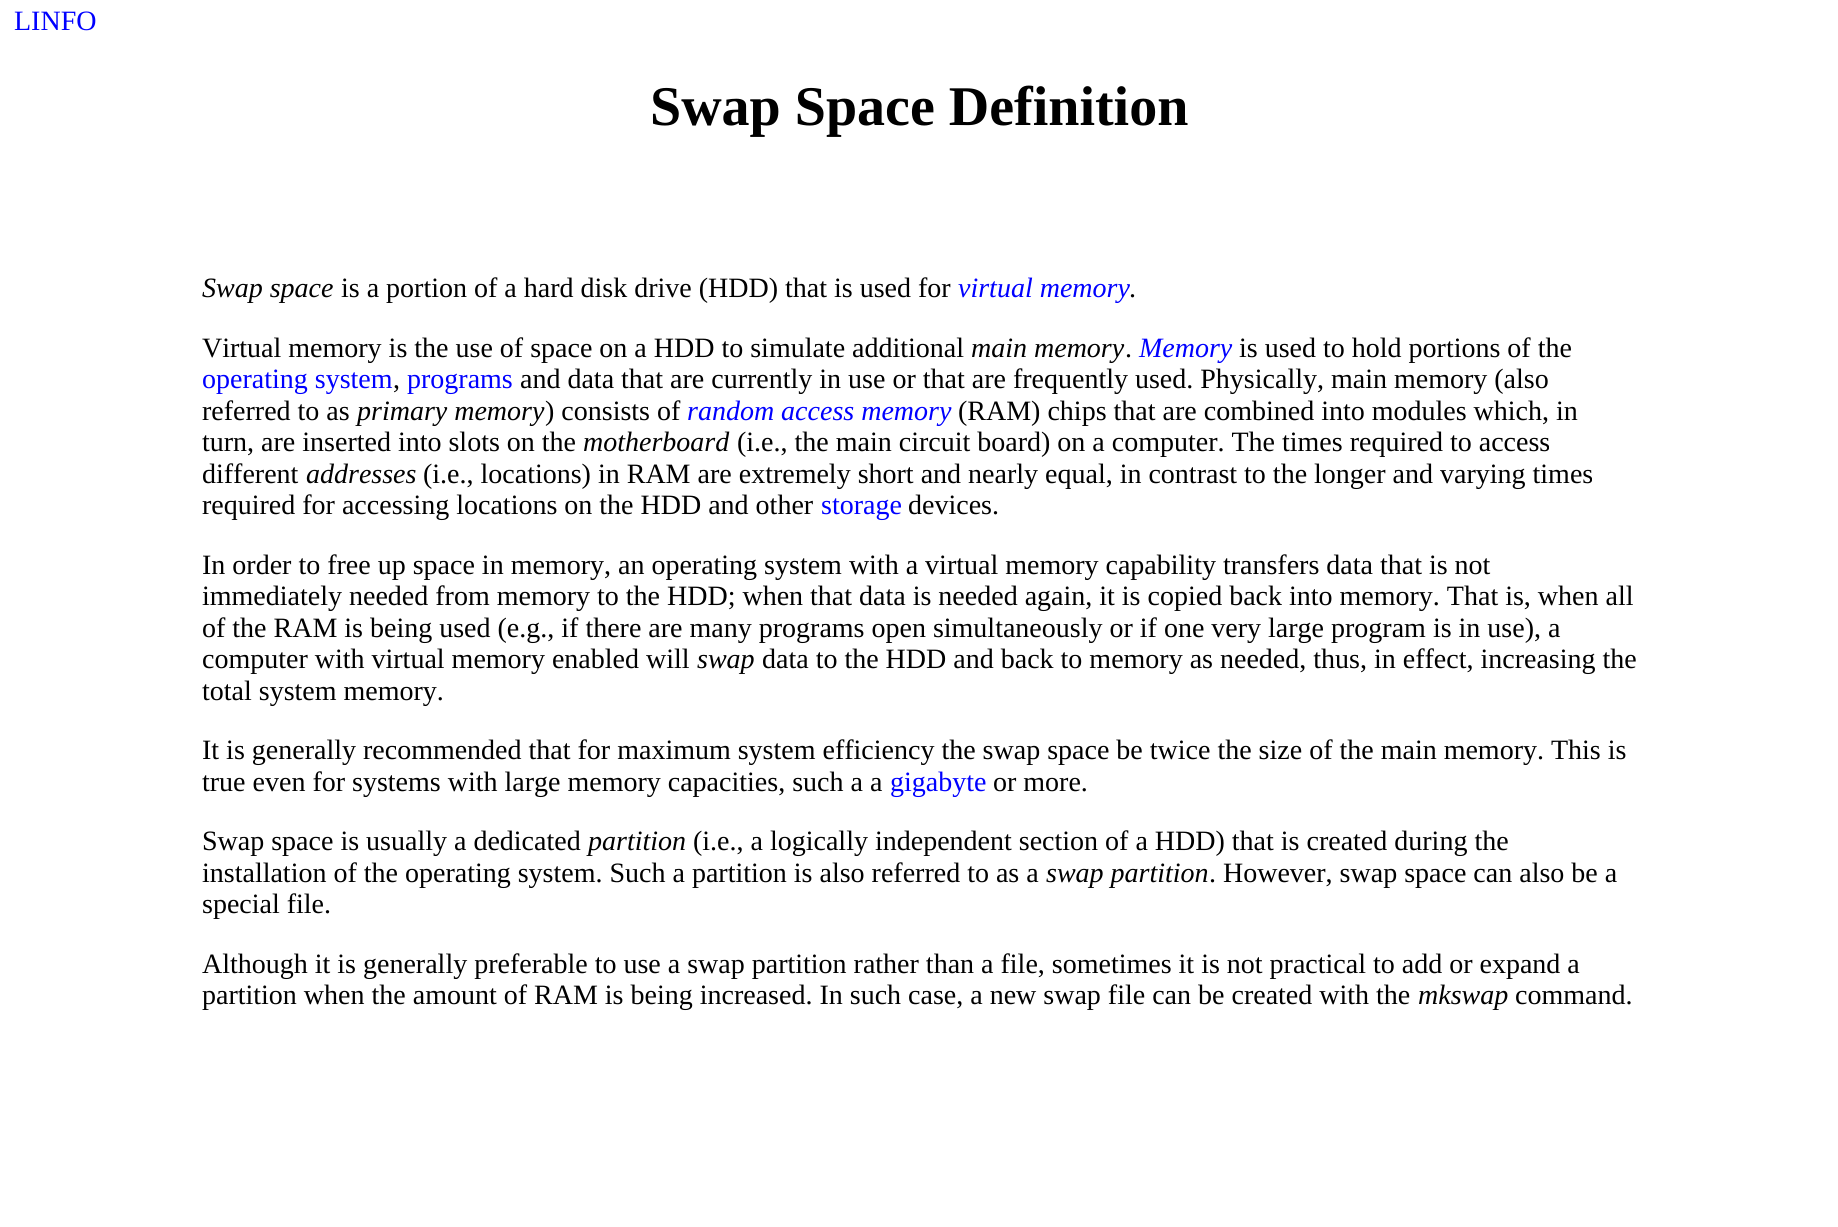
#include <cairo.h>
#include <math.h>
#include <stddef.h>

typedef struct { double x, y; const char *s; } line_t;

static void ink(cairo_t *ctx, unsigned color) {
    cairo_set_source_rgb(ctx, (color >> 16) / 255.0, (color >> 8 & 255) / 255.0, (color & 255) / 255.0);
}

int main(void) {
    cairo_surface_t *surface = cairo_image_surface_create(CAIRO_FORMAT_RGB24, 1838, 1227);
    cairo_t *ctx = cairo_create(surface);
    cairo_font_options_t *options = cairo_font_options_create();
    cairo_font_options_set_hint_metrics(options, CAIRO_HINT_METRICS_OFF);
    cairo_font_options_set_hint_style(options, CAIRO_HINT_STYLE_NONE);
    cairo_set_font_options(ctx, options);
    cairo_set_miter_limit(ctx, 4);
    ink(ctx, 0xFFFFFF);
    cairo_paint(ctx);
    cairo_select_font_face(ctx, "Liberation Serif", CAIRO_FONT_SLANT_NORMAL, CAIRO_FONT_WEIGHT_NORMAL);
    cairo_set_font_size(ctx, 28);
    ink(ctx, 0x0000FF);
    cairo_move_to(ctx, 14, 30);
    cairo_show_text(ctx, "LINFO");
    cairo_select_font_face(ctx, "Liberation Serif", CAIRO_FONT_SLANT_NORMAL, CAIRO_FONT_WEIGHT_BOLD);
    cairo_set_font_size(ctx, 56);
    ink(ctx, 0x000000);
    cairo_move_to(ctx, 650, 125);
    cairo_show_text(ctx, "Swap Space Definition");
    cairo_select_font_face(ctx, "Liberation Serif", CAIRO_FONT_SLANT_ITALIC, CAIRO_FONT_WEIGHT_NORMAL);
    cairo_set_font_size(ctx, 28);
    cairo_move_to(ctx, 202, 297);
    cairo_show_text(ctx, "Swap space");
    cairo_select_font_face(ctx, "Liberation Serif", CAIRO_FONT_SLANT_NORMAL, CAIRO_FONT_WEIGHT_NORMAL);
    cairo_move_to(ctx, 341, 297);
    cairo_show_text(ctx, "is a portion of a hard disk drive (HDD) that is used for");
    cairo_select_font_face(ctx, "Liberation Serif", CAIRO_FONT_SLANT_ITALIC, CAIRO_FONT_WEIGHT_NORMAL);
    ink(ctx, 0x0000FF);
    cairo_move_to(ctx, 958, 297);
    cairo_show_text(ctx, "virtual memory");
    cairo_select_font_face(ctx, "Liberation Serif", CAIRO_FONT_SLANT_NORMAL, CAIRO_FONT_WEIGHT_NORMAL);
    ink(ctx, 0x000000);
    cairo_move_to(ctx, 1129, 297);
    cairo_show_text(ctx, ".");
    cairo_move_to(ctx, 202, 357);
    cairo_show_text(ctx, "Virtual memory is the use of space on a HDD to simulate additional");
    cairo_select_font_face(ctx, "Liberation Serif", CAIRO_FONT_SLANT_ITALIC, CAIRO_FONT_WEIGHT_NORMAL);
    cairo_move_to(ctx, 971, 357);
    cairo_show_text(ctx, "main memory");
    cairo_select_font_face(ctx, "Liberation Serif", CAIRO_FONT_SLANT_NORMAL, CAIRO_FONT_WEIGHT_NORMAL);
    cairo_move_to(ctx, 1125, 357);
    cairo_show_text(ctx, ".");
    cairo_select_font_face(ctx, "Liberation Serif", CAIRO_FONT_SLANT_ITALIC, CAIRO_FONT_WEIGHT_NORMAL);
    ink(ctx, 0x0000FF);
    cairo_move_to(ctx, 1139, 357);
    cairo_show_text(ctx, "Memory");
    cairo_select_font_face(ctx, "Liberation Serif", CAIRO_FONT_SLANT_NORMAL, CAIRO_FONT_WEIGHT_NORMAL);
    ink(ctx, 0x000000);
    cairo_move_to(ctx, 1239, 357);
    cairo_show_text(ctx, "is used to hold portions of the");
    ink(ctx, 0x0000FF);
    cairo_move_to(ctx, 202, 388);
    cairo_show_text(ctx, "operating system");
    ink(ctx, 0x000000);
    cairo_move_to(ctx, 393, 388);
    cairo_show_text(ctx, ",");
    ink(ctx, 0x0000FF);
    cairo_move_to(ctx, 407, 388);
    cairo_show_text(ctx, "programs");
    ink(ctx, 0x000000);
    cairo_move_to(ctx, 520, 388);
    cairo_show_text(ctx, "and data that are currently in use or that are frequently used. Physically, main memory (also");
    cairo_move_to(ctx, 202, 420);
    cairo_show_text(ctx, "referred to as");
    cairo_select_font_face(ctx, "Liberation Serif", CAIRO_FONT_SLANT_ITALIC, CAIRO_FONT_WEIGHT_NORMAL);
    cairo_move_to(ctx, 357, 420);
    cairo_show_text(ctx, "primary memory");
    cairo_select_font_face(ctx, "Liberation Serif", CAIRO_FONT_SLANT_NORMAL, CAIRO_FONT_WEIGHT_NORMAL);
    cairo_move_to(ctx, 545, 420);
    cairo_show_text(ctx, ") consists of");
    cairo_select_font_face(ctx, "Liberation Serif", CAIRO_FONT_SLANT_ITALIC, CAIRO_FONT_WEIGHT_NORMAL);
    ink(ctx, 0x0000FF);
    cairo_move_to(ctx, 687, 420);
    cairo_show_text(ctx, "random access memory");
    cairo_select_font_face(ctx, "Liberation Serif", CAIRO_FONT_SLANT_NORMAL, CAIRO_FONT_WEIGHT_NORMAL);
    ink(ctx, 0x000000);
    cairo_move_to(ctx, 958, 420);
    cairo_show_text(ctx, "(RAM) chips that are combined into modules which, in");
    cairo_move_to(ctx, 202, 451);
    cairo_show_text(ctx, "turn, are inserted into slots on the");
    cairo_select_font_face(ctx, "Liberation Serif", CAIRO_FONT_SLANT_ITALIC, CAIRO_FONT_WEIGHT_NORMAL);
    cairo_move_to(ctx, 583, 451);
    cairo_show_text(ctx, "motherboard");
    cairo_select_font_face(ctx, "Liberation Serif", CAIRO_FONT_SLANT_NORMAL, CAIRO_FONT_WEIGHT_NORMAL);
    cairo_move_to(ctx, 737, 451);
    cairo_show_text(ctx, "(i.e., the main circuit board) on a computer. The times required to access");
    cairo_move_to(ctx, 202, 483);
    cairo_show_text(ctx, "different");
    cairo_select_font_face(ctx, "Liberation Serif", CAIRO_FONT_SLANT_ITALIC, CAIRO_FONT_WEIGHT_NORMAL);
    cairo_move_to(ctx, 306, 483);
    cairo_show_text(ctx, "addresses");
    cairo_select_font_face(ctx, "Liberation Serif", CAIRO_FONT_SLANT_NORMAL, CAIRO_FONT_WEIGHT_NORMAL);
    cairo_move_to(ctx, 423, 483);
    cairo_show_text(ctx, "(i.e., locations) in RAM are extremely short and nearly equal, in contrast to the longer and varying times");
    cairo_move_to(ctx, 202, 514);
    cairo_show_text(ctx, "required for accessing locations on the HDD and other");
    ink(ctx, 0x0000FF);
    cairo_move_to(ctx, 821, 514);
    cairo_show_text(ctx, "storage");
    ink(ctx, 0x000000);
    {
        static const line_t items[] = {
            {908, 514, "devices."},
            {202, 574, "In order to free up space in memory, an operating system with a virtual memory capability transfers data that is not"},
            {202, 605, "immediately needed from memory to the HDD; when that data is needed again, it is copied back into memory. That is, when all"},
            {202, 637, "of the RAM is being used (e.g., if there are many programs open simultaneously or if one very large program is in use), a"},
            {202, 668, "computer with virtual memory enabled will"},
        };
        for (size_t i = 0; i < sizeof items / sizeof *items; i++) {
            cairo_move_to(ctx, items[i].x, items[i].y);
            cairo_show_text(ctx, items[i].s);
        }
    }
    cairo_select_font_face(ctx, "Liberation Serif", CAIRO_FONT_SLANT_ITALIC, CAIRO_FONT_WEIGHT_NORMAL);
    cairo_move_to(ctx, 697, 668);
    cairo_show_text(ctx, "swap");
    cairo_select_font_face(ctx, "Liberation Serif", CAIRO_FONT_SLANT_NORMAL, CAIRO_FONT_WEIGHT_NORMAL);
    {
        static const line_t items[] = {
            {762, 668, "data to the HDD and back to memory as needed, thus, in effect, increasing the"},
            {202, 700, "total system memory."},
            {202, 759, "It is generally recommended that for maximum system efficiency the swap space be twice the size of the main memory. This is"},
            {202, 791, "true even for systems with large memory capacities, such a a"},
        };
        for (size_t i = 0; i < sizeof items / sizeof *items; i++) {
            cairo_move_to(ctx, items[i].x, items[i].y);
            cairo_show_text(ctx, items[i].s);
        }
    }
    ink(ctx, 0x0000FF);
    cairo_move_to(ctx, 890, 791);
    cairo_show_text(ctx, "gigabyte");
    ink(ctx, 0x000000);
    cairo_move_to(ctx, 993, 791);
    cairo_show_text(ctx, "or more.");
    cairo_move_to(ctx, 202, 850);
    cairo_show_text(ctx, "Swap space is usually a dedicated");
    cairo_select_font_face(ctx, "Liberation Serif", CAIRO_FONT_SLANT_ITALIC, CAIRO_FONT_WEIGHT_NORMAL);
    cairo_move_to(ctx, 588, 850);
    cairo_show_text(ctx, "partition");
    cairo_select_font_face(ctx, "Liberation Serif", CAIRO_FONT_SLANT_NORMAL, CAIRO_FONT_WEIGHT_NORMAL);
    cairo_move_to(ctx, 693, 850);
    cairo_show_text(ctx, "(i.e., a logically independent section of a HDD) that is created during the");
    cairo_move_to(ctx, 202, 882);
    cairo_show_text(ctx, "installation of the operating system. Such a partition is also referred to as a");
    cairo_select_font_face(ctx, "Liberation Serif", CAIRO_FONT_SLANT_ITALIC, CAIRO_FONT_WEIGHT_NORMAL);
    cairo_move_to(ctx, 1046, 882);
    cairo_show_text(ctx, "swap partition");
    cairo_select_font_face(ctx, "Liberation Serif", CAIRO_FONT_SLANT_NORMAL, CAIRO_FONT_WEIGHT_NORMAL);
    {
        static const line_t items[] = {
            {1209, 882, ". However, swap space can also be a"},
            {202, 913, "special file."},
            {202, 973, "Although it is generally preferable to use a swap partition rather than a file, sometimes it is not practical to add or expand a"},
            {202, 1004, "partition when the amount of RAM is being increased. In such case, a new swap file can be created with the"},
        };
        for (size_t i = 0; i < sizeof items / sizeof *items; i++) {
            cairo_move_to(ctx, items[i].x, items[i].y);
            cairo_show_text(ctx, items[i].s);
        }
    }
    cairo_select_font_face(ctx, "Liberation Serif", CAIRO_FONT_SLANT_ITALIC, CAIRO_FONT_WEIGHT_NORMAL);
    cairo_move_to(ctx, 1418, 1004);
    cairo_show_text(ctx, "mkswap");
    cairo_select_font_face(ctx, "Liberation Serif", CAIRO_FONT_SLANT_NORMAL, CAIRO_FONT_WEIGHT_NORMAL);
    cairo_move_to(ctx, 1515, 1004);
    cairo_show_text(ctx, "command.");
    cairo_surface_write_to_png(surface, "image.png");
    cairo_font_options_destroy(options);
    cairo_destroy(ctx);
    cairo_surface_destroy(surface);
    return 0;
}
